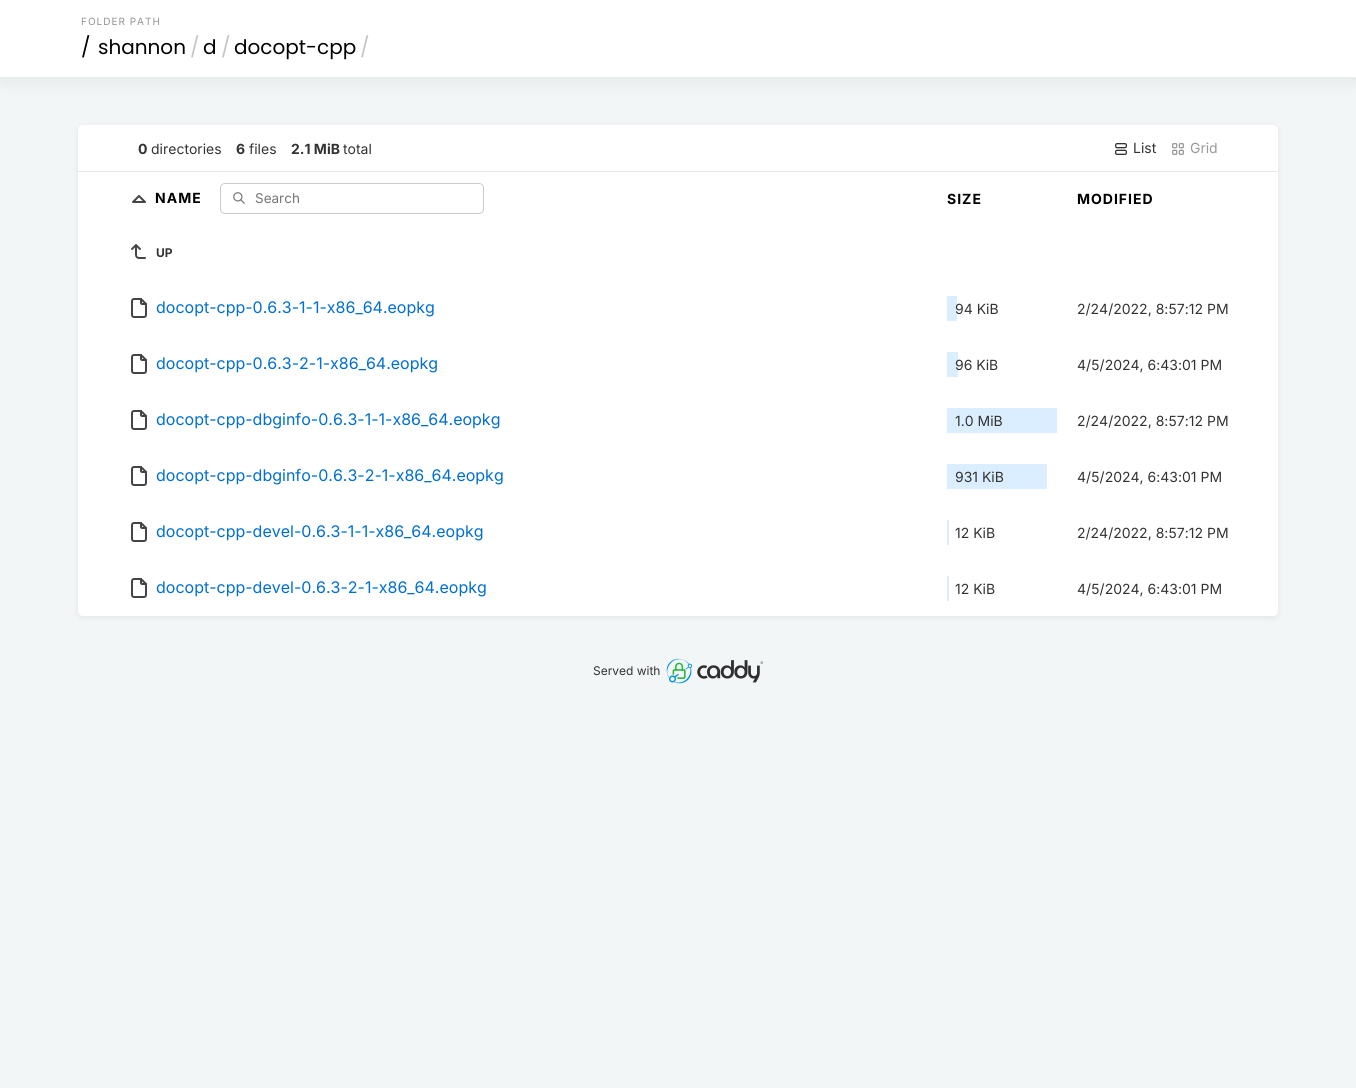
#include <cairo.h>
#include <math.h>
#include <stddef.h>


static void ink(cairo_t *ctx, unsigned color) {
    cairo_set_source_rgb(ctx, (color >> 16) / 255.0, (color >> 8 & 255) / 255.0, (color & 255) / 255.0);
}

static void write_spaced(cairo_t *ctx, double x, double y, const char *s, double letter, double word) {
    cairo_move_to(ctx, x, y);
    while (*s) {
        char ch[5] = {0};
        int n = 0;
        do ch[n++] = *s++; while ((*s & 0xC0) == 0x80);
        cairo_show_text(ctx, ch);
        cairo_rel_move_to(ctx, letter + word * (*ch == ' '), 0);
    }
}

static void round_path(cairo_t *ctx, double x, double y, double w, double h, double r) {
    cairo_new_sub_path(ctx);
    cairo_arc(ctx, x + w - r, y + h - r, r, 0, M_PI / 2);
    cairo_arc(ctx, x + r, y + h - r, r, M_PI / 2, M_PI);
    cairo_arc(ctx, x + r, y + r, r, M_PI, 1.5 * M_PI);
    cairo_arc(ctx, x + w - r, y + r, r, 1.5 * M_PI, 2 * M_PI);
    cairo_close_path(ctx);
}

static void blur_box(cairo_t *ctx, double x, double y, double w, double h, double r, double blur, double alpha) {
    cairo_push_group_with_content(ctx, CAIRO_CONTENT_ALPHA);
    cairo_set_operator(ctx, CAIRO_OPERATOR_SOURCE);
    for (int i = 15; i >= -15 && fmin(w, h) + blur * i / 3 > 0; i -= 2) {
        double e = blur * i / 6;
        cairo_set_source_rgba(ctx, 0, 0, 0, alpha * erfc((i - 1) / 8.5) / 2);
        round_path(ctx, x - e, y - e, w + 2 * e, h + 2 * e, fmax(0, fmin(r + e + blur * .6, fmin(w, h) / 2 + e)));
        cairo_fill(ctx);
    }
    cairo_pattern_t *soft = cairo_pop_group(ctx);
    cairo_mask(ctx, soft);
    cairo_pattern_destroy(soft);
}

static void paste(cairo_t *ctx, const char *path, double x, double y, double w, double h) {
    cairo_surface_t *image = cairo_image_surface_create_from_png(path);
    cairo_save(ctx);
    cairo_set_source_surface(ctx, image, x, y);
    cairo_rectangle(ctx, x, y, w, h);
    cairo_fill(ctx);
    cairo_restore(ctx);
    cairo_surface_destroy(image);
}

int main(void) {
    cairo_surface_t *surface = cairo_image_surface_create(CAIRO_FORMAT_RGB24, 1356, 1088);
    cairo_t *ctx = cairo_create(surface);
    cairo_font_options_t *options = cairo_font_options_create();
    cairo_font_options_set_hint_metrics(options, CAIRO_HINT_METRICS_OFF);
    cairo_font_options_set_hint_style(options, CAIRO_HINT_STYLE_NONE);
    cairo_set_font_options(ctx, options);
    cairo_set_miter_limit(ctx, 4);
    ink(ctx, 0xF3F6F7);
    cairo_paint(ctx);
    ink(ctx, 0x000000);
    blur_box(ctx, 0, 0, 1356, 77, 0, 10, 0.1);
    ink(ctx, 0xFFFFFF);
    cairo_rectangle(ctx, 0, 0, 1356, 77);
    cairo_fill(ctx);
    cairo_select_font_face(ctx, "Inter", CAIRO_FONT_SLANT_NORMAL, CAIRO_FONT_WEIGHT_NORMAL);
    cairo_set_font_size(ctx, 10);
    ink(ctx, 0x939393);
    write_spaced(ctx, 81, 25, "FOLDER PATH", 1, 0);
    cairo_select_font_face(ctx, "Poppins", CAIRO_FONT_SLANT_NORMAL, CAIRO_FONT_WEIGHT_NORMAL);
    cairo_set_font_size(ctx, 20);
    ink(ctx, 0x000000);
    cairo_move_to(ctx, 81, 54);
    cairo_show_text(ctx, "/");
    cairo_move_to(ctx, 98, 54);
    cairo_show_text(ctx, "shannon");
    ink(ctx, 0xC5C5C5);
    cairo_move_to(ctx, 190, 54);
    cairo_show_text(ctx, "/");
    ink(ctx, 0x000000);
    cairo_move_to(ctx, 203, 54);
    cairo_show_text(ctx, "d");
    ink(ctx, 0xC5C5C5);
    cairo_move_to(ctx, 221, 54);
    cairo_show_text(ctx, "/");
    ink(ctx, 0x000000);
    cairo_move_to(ctx, 234, 54);
    cairo_show_text(ctx, "docopt-cpp");
    ink(ctx, 0xC5C5C5);
    cairo_move_to(ctx, 360, 54);
    cairo_show_text(ctx, "/");
    ink(ctx, 0x000000);
    blur_box(ctx, 77, 126, 1202, 493, 6, 2.5, 0.05);
    ink(ctx, 0xFFFFFF);
    round_path(ctx, 78, 125, 1200, 491, 5);
    cairo_fill(ctx);
    ink(ctx, 0xE5E9EA);
    cairo_rectangle(ctx, 78, 171, 1200, 1);
    cairo_fill(ctx);
    cairo_select_font_face(ctx, "Inter", CAIRO_FONT_SLANT_NORMAL, CAIRO_FONT_WEIGHT_BOLD);
    cairo_set_font_size(ctx, 14);
    ink(ctx, 0x333333);
    cairo_move_to(ctx, 138, 154);
    cairo_show_text(ctx, "0");
    cairo_select_font_face(ctx, "Inter", CAIRO_FONT_SLANT_NORMAL, CAIRO_FONT_WEIGHT_NORMAL);
    cairo_move_to(ctx, 151, 154);
    cairo_show_text(ctx, "directories");
    cairo_select_font_face(ctx, "Inter", CAIRO_FONT_SLANT_NORMAL, CAIRO_FONT_WEIGHT_BOLD);
    cairo_move_to(ctx, 236, 154);
    cairo_show_text(ctx, "6");
    cairo_select_font_face(ctx, "Inter", CAIRO_FONT_SLANT_NORMAL, CAIRO_FONT_WEIGHT_NORMAL);
    cairo_move_to(ctx, 249, 154);
    cairo_show_text(ctx, "files");
    cairo_select_font_face(ctx, "Inter", CAIRO_FONT_SLANT_NORMAL, CAIRO_FONT_WEIGHT_BOLD);
    cairo_move_to(ctx, 291, 154);
    cairo_show_text(ctx, "2.1 MiB");
    cairo_select_font_face(ctx, "Inter", CAIRO_FONT_SLANT_NORMAL, CAIRO_FONT_WEIGHT_NORMAL);
    cairo_move_to(ctx, 343, 154);
    cairo_show_text(ctx, "total");
    paste(ctx, "media/1.png", 1115, 143, 12, 12);
    cairo_move_to(ctx, 1133, 153);
    cairo_show_text(ctx, "List");
    paste(ctx, "media/2.png", 1172, 143, 12, 12);
    ink(ctx, 0x9A9A9A);
    cairo_move_to(ctx, 1190, 153);
    cairo_show_text(ctx, "Grid");
    cairo_new_path(ctx);
    cairo_move_to(ctx, 145, 202);
    cairo_line_to(ctx, 139, 196);
    cairo_line_to(ctx, 133, 202);
    cairo_line_to(ctx, 145, 202);
    ink(ctx, 0x454545);
    cairo_set_line_cap(ctx, CAIRO_LINE_CAP_ROUND);
    cairo_set_line_join(ctx, CAIRO_LINE_JOIN_ROUND);
    cairo_stroke(ctx);
    cairo_select_font_face(ctx, "Inter", CAIRO_FONT_SLANT_NORMAL, CAIRO_FONT_WEIGHT_BOLD);
    ink(ctx, 0x000000);
    write_spaced(ctx, 155, 203, "NAME", 1, 0);
    paste(ctx, "media/3.png", 233, 192, 12, 12);
    round_path(ctx, 220.5, 183.5, 263, 30, 4.5);
    ink(ctx, 0xCCCCCC);
    cairo_set_line_width(ctx, 1);
    cairo_set_line_cap(ctx, CAIRO_LINE_CAP_BUTT);
    cairo_set_line_join(ctx, CAIRO_LINE_JOIN_MITER);
    cairo_stroke(ctx);
    cairo_select_font_face(ctx, "Inter", CAIRO_FONT_SLANT_NORMAL, CAIRO_FONT_WEIGHT_NORMAL);
    cairo_set_font_size(ctx, 13.5);
    ink(ctx, 0x757575);
    cairo_move_to(ctx, 255, 203);
    cairo_show_text(ctx, "Search");
    cairo_select_font_face(ctx, "Inter", CAIRO_FONT_SLANT_NORMAL, CAIRO_FONT_WEIGHT_BOLD);
    cairo_set_font_size(ctx, 14);
    ink(ctx, 0x000000);
    write_spaced(ctx, 947, 204, "SIZE", 1, 0);
    write_spaced(ctx, 1077, 204, "MODIFIED", 1, 0);
    paste(ctx, "media/4.png", 131, 244, 15, 15);
    cairo_set_font_size(ctx, 12);
    ink(ctx, 0x333333);
    cairo_move_to(ctx, 156, 257);
    cairo_show_text(ctx, "UP");
    paste(ctx, "media/5.png", 131, 298, 16, 20);
    cairo_select_font_face(ctx, "Inter", CAIRO_FONT_SLANT_NORMAL, CAIRO_FONT_WEIGHT_NORMAL);
    cairo_set_font_size(ctx, 16);
    ink(ctx, 0x006ED3);
    cairo_move_to(ctx, 156, 313);
    cairo_show_text(ctx, "docopt-cpp-0.6.3-1-1-x86_64.eopkg");
    ink(ctx, 0xDBEEFF);
    cairo_rectangle(ctx, 947, 296, 10, 25);
    cairo_fill(ctx);
    cairo_set_font_size(ctx, 14);
    ink(ctx, 0x333333);
    cairo_move_to(ctx, 955, 314);
    cairo_show_text(ctx, "94 KiB");
    cairo_move_to(ctx, 1077, 314);
    cairo_show_text(ctx, "2/24/2022, 8:57:12 PM");
    paste(ctx, "media/5.png", 131, 354, 16, 20);
    cairo_set_font_size(ctx, 16);
    ink(ctx, 0x006ED3);
    cairo_move_to(ctx, 156, 369);
    cairo_show_text(ctx, "docopt-cpp-0.6.3-2-1-x86_64.eopkg");
    ink(ctx, 0xDBEEFF);
    cairo_rectangle(ctx, 947, 352, 11, 25);
    cairo_fill(ctx);
    cairo_set_font_size(ctx, 14);
    ink(ctx, 0x333333);
    cairo_move_to(ctx, 955, 370);
    cairo_show_text(ctx, "96 KiB");
    cairo_move_to(ctx, 1077, 370);
    cairo_show_text(ctx, "4/5/2024, 6:43:01 PM");
    paste(ctx, "media/5.png", 131, 410, 16, 20);
    cairo_set_font_size(ctx, 16);
    ink(ctx, 0x006ED3);
    cairo_move_to(ctx, 156, 425);
    cairo_show_text(ctx, "docopt-cpp-dbginfo-0.6.3-1-1-x86_64.eopkg");
    ink(ctx, 0xDBEEFF);
    cairo_rectangle(ctx, 947, 408, 110, 25);
    cairo_fill(ctx);
    cairo_set_font_size(ctx, 14);
    ink(ctx, 0x333333);
    cairo_move_to(ctx, 955, 426);
    cairo_show_text(ctx, "1.0 MiB");
    cairo_move_to(ctx, 1077, 426);
    cairo_show_text(ctx, "2/24/2022, 8:57:12 PM");
    paste(ctx, "media/5.png", 131, 466, 16, 20);
    cairo_set_font_size(ctx, 16);
    ink(ctx, 0x006ED3);
    cairo_move_to(ctx, 156, 481);
    cairo_show_text(ctx, "docopt-cpp-dbginfo-0.6.3-2-1-x86_64.eopkg");
    ink(ctx, 0xDBEEFF);
    cairo_rectangle(ctx, 947, 464, 100, 25);
    cairo_fill(ctx);
    cairo_set_font_size(ctx, 14);
    ink(ctx, 0x333333);
    cairo_move_to(ctx, 955, 482);
    cairo_show_text(ctx, "931 KiB");
    cairo_move_to(ctx, 1077, 482);
    cairo_show_text(ctx, "4/5/2024, 6:43:01 PM");
    paste(ctx, "media/5.png", 131, 522, 16, 20);
    cairo_set_font_size(ctx, 16);
    ink(ctx, 0x006ED3);
    cairo_move_to(ctx, 156, 537);
    cairo_show_text(ctx, "docopt-cpp-devel-0.6.3-1-1-x86_64.eopkg");
    ink(ctx, 0xDBEEFF);
    cairo_rectangle(ctx, 947, 520, 2, 25);
    cairo_fill(ctx);
    cairo_set_font_size(ctx, 14);
    ink(ctx, 0x333333);
    cairo_move_to(ctx, 955, 538);
    cairo_show_text(ctx, "12 KiB");
    cairo_move_to(ctx, 1077, 538);
    cairo_show_text(ctx, "2/24/2022, 8:57:12 PM");
    paste(ctx, "media/5.png", 131, 578, 16, 20);
    cairo_set_font_size(ctx, 16);
    ink(ctx, 0x006ED3);
    cairo_move_to(ctx, 156, 593);
    cairo_show_text(ctx, "docopt-cpp-devel-0.6.3-2-1-x86_64.eopkg");
    ink(ctx, 0xDBEEFF);
    cairo_rectangle(ctx, 947, 576, 2, 25);
    cairo_fill(ctx);
    cairo_set_font_size(ctx, 14);
    ink(ctx, 0x333333);
    cairo_move_to(ctx, 955, 594);
    cairo_show_text(ctx, "12 KiB");
    cairo_move_to(ctx, 1077, 594);
    cairo_show_text(ctx, "4/5/2024, 6:43:01 PM");
    cairo_set_font_size(ctx, 12);
    cairo_move_to(ctx, 593, 675);
    cairo_show_text(ctx, "Served with");
    paste(ctx, "media/6.png", 666, 658, 97, 26);
    cairo_surface_write_to_png(surface, "image.png");
    cairo_font_options_destroy(options);
    cairo_destroy(ctx);
    cairo_surface_destroy(surface);
    return 0;
}
